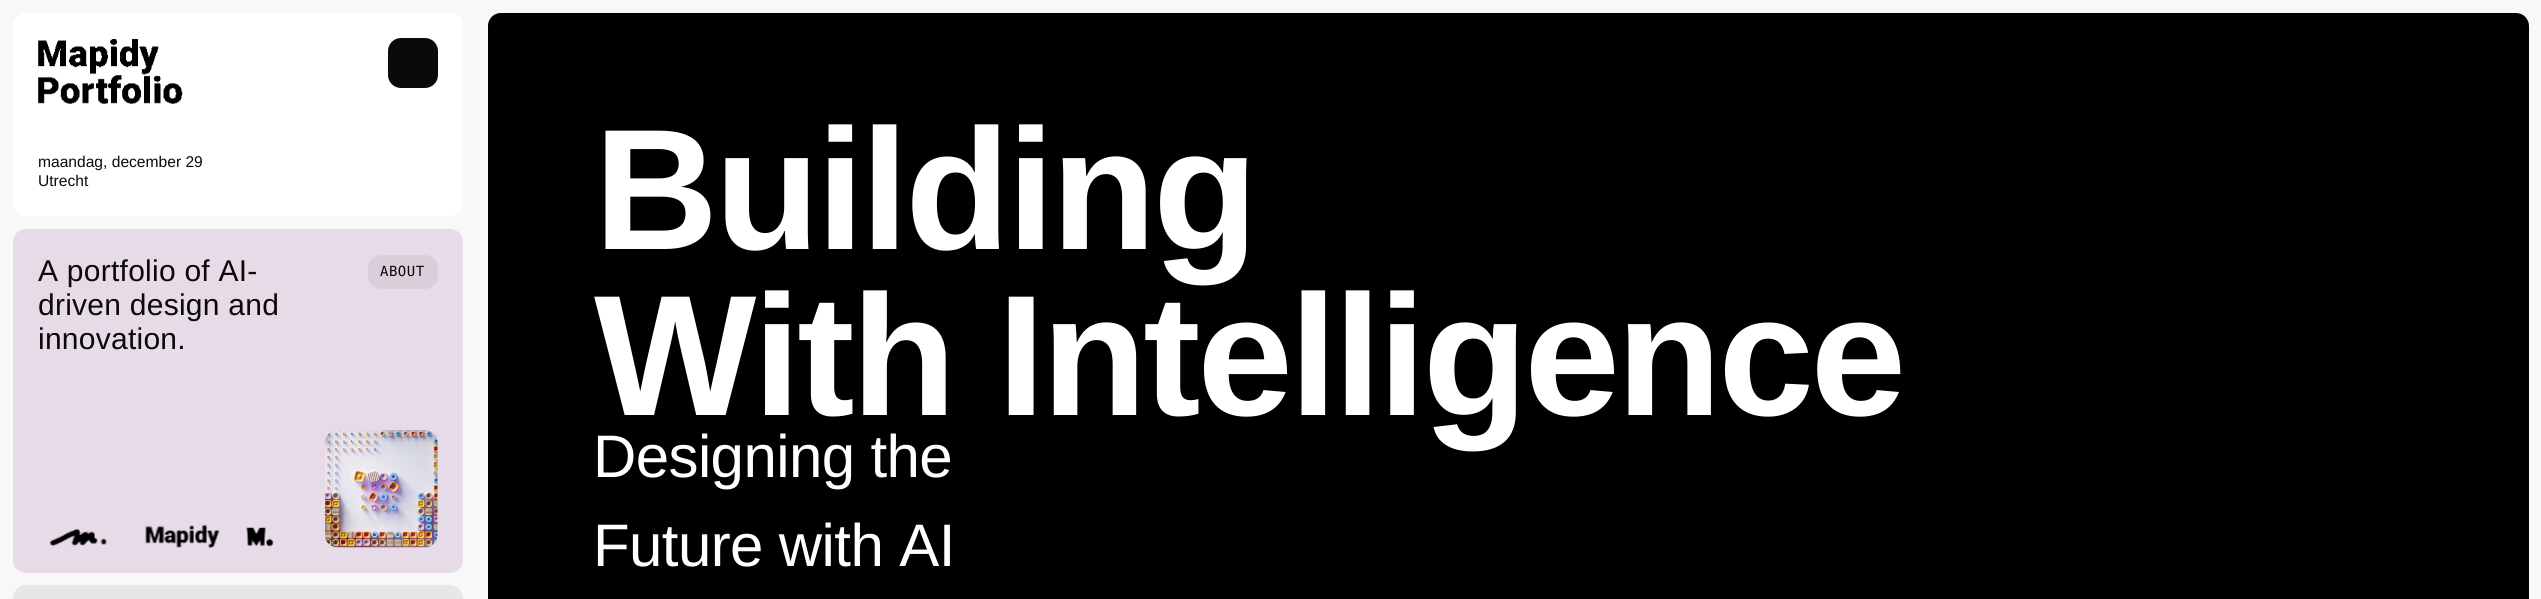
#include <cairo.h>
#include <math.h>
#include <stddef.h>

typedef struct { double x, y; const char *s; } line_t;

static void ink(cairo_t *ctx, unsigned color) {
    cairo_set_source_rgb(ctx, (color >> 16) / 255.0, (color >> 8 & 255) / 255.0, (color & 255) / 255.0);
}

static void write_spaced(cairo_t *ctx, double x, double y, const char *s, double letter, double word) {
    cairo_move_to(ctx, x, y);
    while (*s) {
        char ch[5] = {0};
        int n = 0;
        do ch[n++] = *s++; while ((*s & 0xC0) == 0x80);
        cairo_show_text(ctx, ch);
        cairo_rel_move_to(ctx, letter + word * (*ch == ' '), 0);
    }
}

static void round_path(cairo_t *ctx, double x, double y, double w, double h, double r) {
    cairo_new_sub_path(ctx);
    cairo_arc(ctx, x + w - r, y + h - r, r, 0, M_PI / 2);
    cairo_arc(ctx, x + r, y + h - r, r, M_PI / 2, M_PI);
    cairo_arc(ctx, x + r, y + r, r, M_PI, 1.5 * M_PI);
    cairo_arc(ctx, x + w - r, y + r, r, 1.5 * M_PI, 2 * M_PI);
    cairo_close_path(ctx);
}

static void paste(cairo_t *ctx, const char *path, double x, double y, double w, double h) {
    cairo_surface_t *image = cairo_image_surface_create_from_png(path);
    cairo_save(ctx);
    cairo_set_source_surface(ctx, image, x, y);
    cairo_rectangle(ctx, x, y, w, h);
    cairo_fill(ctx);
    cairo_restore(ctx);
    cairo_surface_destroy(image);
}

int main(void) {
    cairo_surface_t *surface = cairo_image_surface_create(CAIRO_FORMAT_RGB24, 2541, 599);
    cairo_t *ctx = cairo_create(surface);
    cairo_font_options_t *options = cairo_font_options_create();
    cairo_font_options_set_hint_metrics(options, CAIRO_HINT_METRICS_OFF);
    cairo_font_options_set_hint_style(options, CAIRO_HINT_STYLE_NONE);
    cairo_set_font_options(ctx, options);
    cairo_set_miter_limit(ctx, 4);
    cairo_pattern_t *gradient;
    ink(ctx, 0xF8F8F8);
    cairo_paint(ctx);
    ink(ctx, 0xFFFFFF);
    round_path(ctx, 13, 13, 450, 203, 13);
    cairo_fill(ctx);
    paste(ctx, "media/1.png", 38, 39, 145, 65);
    ink(ctx, 0x0A0A0A);
    round_path(ctx, 389.5, 39.5, 47, 47, 11.5);
    cairo_fill_preserve(ctx);
    cairo_set_line_width(ctx, 3);
    cairo_stroke(ctx);
    cairo_select_font_face(ctx, "Liberation Sans", CAIRO_FONT_SLANT_NORMAL, CAIRO_FONT_WEIGHT_NORMAL);
    cairo_set_font_size(ctx, 15.6);
    cairo_move_to(ctx, 38, 167);
    cairo_show_text(ctx, "maandag, december 29");
    cairo_move_to(ctx, 38, 186);
    cairo_show_text(ctx, "Utrecht");
    ink(ctx, 0xE8DBE8);
    round_path(ctx, 13, 229, 450, 344, 13);
    cairo_fill(ctx);
    cairo_set_font_size(ctx, 30);
    ink(ctx, 0x0A0A0A);
    {
        static const line_t items[] = {
            {38, 281, "A portfolio of AI-"},
            {38, 315, "driven design and"},
            {38, 349, "innovation."},
        };
        for (size_t i = 0; i < sizeof items / sizeof *items; i++) {
            write_spaced(ctx, items[i].x, items[i].y, items[i].s, 0.25, 0);
        }
    }
    ink(ctx, 0xDBCEDB);
    round_path(ctx, 368, 255, 70, 34, 13);
    cairo_fill(ctx);
    cairo_select_font_face(ctx, "DejaVu Sans Mono", CAIRO_FONT_SLANT_NORMAL, CAIRO_FONT_WEIGHT_NORMAL);
    cairo_set_font_size(ctx, 14);
    ink(ctx, 0x0A0A0A);
    write_spaced(ctx, 380, 276, "ABOUT", 0.5, 0);
    paste(ctx, "media/2.png", 49, 528, 58, 18);
    paste(ctx, "media/3.png", 145, 524, 75, 24);
    paste(ctx, "media/4.png", 246, 527, 28, 20);
    paste(ctx, "media/5.png", 325, 430, 113, 118);
    ink(ctx, 0xE7E7E7);
    cairo_new_path(ctx);
    cairo_move_to(ctx, 26, 585);
    cairo_line_to(ctx, 450, 585);
    cairo_curve_to(ctx, 457, 585, 463, 591, 463, 598);
    cairo_line_to(ctx, 463, 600);
    cairo_line_to(ctx, 13, 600);
    cairo_line_to(ctx, 13, 598);
    cairo_curve_to(ctx, 13, 591, 19, 585, 26, 585);
    cairo_close_path(ctx);
    cairo_fill(ctx);
    ink(ctx, 0x000000);
    round_path(ctx, 488, 13, 2041, 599, 13);
    cairo_fill(ctx);
    gradient = cairo_pattern_create_linear(477, 42, 2539, 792);
    cairo_pattern_add_color_stop_rgba(gradient, 0, 0, 0, 0, 0.2);
    cairo_pattern_add_color_stop_rgba(gradient, 0.64, 0, 0, 0, 0);
    cairo_set_source(ctx, gradient);
    cairo_pattern_destroy(gradient);
    round_path(ctx, 488, 13, 2041, 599, 13);
    cairo_fill(ctx);
    round_path(ctx, 488, 13, 2041, 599, 13);
    cairo_fill(ctx);
    cairo_select_font_face(ctx, "Liberation Sans", CAIRO_FONT_SLANT_NORMAL, CAIRO_FONT_WEIGHT_BOLD);
    cairo_set_font_size(ctx, 172);
    ink(ctx, 0xFFFFFF);
    write_spaced(ctx, 594, 249, "Building", -3.4, 0);
    write_spaced(ctx, 594, 415, "With Intelligence", -3.4, 0);
    cairo_select_font_face(ctx, "Liberation Sans", CAIRO_FONT_SLANT_NORMAL, CAIRO_FONT_WEIGHT_NORMAL);
    cairo_set_font_size(ctx, 60);
    write_spaced(ctx, 593, 477, "Designing the", -0.6, 0);
    write_spaced(ctx, 593, 566, "Future with AI", -0.6, 0);
    cairo_surface_write_to_png(surface, "image.png");
    cairo_font_options_destroy(options);
    cairo_destroy(ctx);
    cairo_surface_destroy(surface);
    return 0;
}
